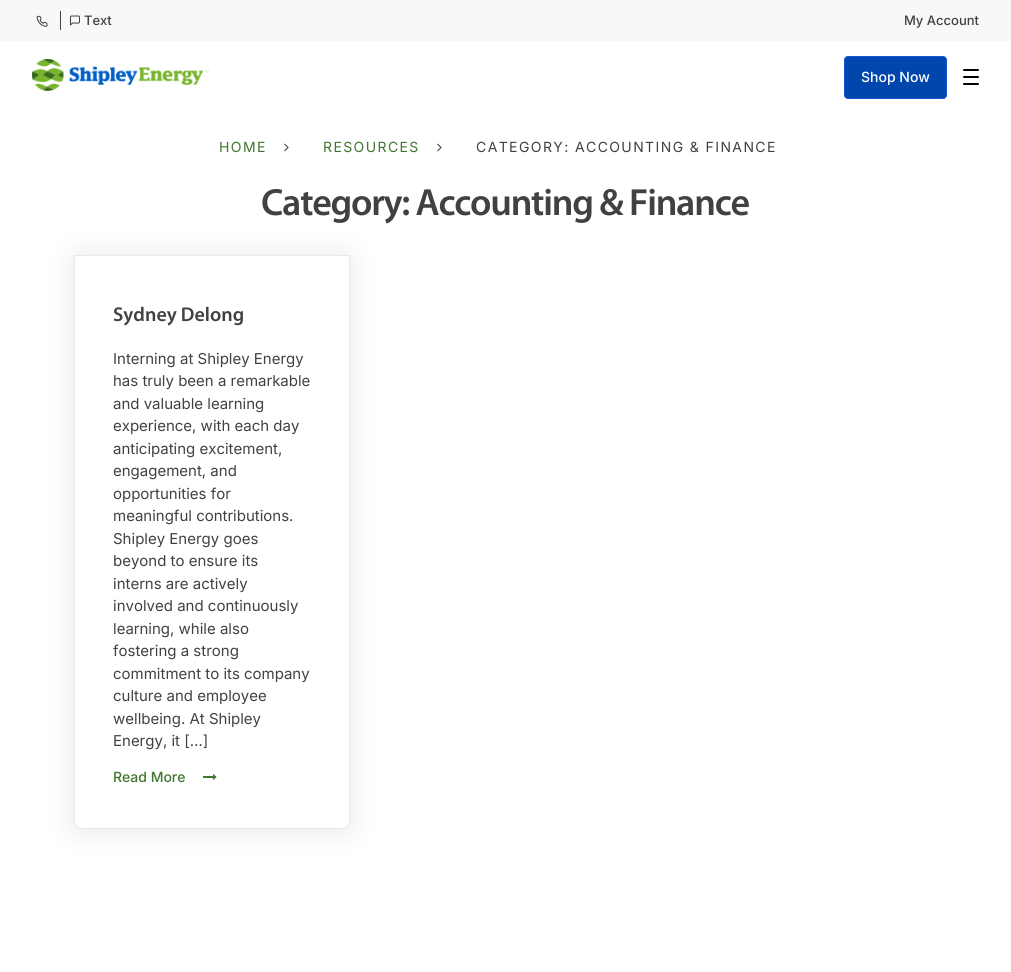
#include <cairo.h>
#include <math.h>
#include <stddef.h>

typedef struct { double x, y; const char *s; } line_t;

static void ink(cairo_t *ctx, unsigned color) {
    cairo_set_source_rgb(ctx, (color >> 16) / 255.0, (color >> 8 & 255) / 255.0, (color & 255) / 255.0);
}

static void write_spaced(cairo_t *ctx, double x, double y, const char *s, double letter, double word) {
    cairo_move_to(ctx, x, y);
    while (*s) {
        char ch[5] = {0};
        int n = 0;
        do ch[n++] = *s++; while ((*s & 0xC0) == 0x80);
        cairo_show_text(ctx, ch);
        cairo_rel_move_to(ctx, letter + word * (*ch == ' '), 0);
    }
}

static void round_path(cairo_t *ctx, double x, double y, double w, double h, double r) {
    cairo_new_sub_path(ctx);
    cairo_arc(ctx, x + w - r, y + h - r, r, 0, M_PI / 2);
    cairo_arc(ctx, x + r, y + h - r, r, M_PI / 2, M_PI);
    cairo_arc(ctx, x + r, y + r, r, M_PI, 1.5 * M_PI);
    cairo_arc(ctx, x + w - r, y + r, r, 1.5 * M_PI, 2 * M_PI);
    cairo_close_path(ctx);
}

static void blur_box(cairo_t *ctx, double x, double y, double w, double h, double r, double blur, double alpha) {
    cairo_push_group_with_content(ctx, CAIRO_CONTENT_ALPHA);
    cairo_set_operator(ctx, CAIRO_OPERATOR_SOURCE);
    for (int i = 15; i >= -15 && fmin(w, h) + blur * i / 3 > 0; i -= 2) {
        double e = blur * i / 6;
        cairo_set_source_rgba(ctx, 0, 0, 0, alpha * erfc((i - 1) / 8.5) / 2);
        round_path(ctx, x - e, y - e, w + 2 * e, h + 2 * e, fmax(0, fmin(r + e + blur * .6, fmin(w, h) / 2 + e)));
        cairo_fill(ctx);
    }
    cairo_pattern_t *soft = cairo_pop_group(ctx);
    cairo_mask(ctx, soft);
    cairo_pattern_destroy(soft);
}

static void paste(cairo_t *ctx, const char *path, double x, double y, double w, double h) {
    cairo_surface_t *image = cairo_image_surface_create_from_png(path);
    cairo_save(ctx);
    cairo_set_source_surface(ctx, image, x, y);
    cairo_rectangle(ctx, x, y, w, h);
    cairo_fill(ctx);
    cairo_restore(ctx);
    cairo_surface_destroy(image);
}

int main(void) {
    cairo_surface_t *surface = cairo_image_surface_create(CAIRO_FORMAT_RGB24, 1011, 972);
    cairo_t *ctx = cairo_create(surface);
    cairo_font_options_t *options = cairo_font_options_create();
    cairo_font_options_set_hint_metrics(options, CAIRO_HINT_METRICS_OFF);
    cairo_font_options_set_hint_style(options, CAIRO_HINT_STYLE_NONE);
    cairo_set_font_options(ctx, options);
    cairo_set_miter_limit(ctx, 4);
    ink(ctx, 0xFFFFFF);
    cairo_paint(ctx);
    ink(ctx, 0xF8F8F8);
    cairo_rectangle(ctx, 0, 0, 1011, 41);
    cairo_fill(ctx);
    paste(ctx, "media/1.png", 36, 15, 12, 12);
    ink(ctx, 0x414141);
    cairo_rectangle(ctx, 60, 11, 1, 19);
    cairo_fill(ctx);
    paste(ctx, "media/2.png", 70, 15, 10, 11);
    cairo_select_font_face(ctx, "Inter Medium", CAIRO_FONT_SLANT_NORMAL, CAIRO_FONT_WEIGHT_NORMAL);
    cairo_set_font_size(ctx, 13);
    cairo_move_to(ctx, 84, 25);
    cairo_show_text(ctx, "Text");
    cairo_move_to(ctx, 904, 25);
    cairo_show_text(ctx, "My Account");
    paste(ctx, "media/3.png", 32, 59, 177, 32);
    ink(ctx, 0x0046AD);
    round_path(ctx, 844.5, 56.5, 102, 42, 3.5);
    cairo_fill_preserve(ctx);
    ink(ctx, 0x1157D0);
    cairo_set_line_width(ctx, 1);
    cairo_stroke(ctx);
    cairo_set_font_size(ctx, 14);
    ink(ctx, 0xFFFFFF);
    cairo_move_to(ctx, 861, 82);
    cairo_show_text(ctx, "Shop Now");
    ink(ctx, 0x000000);
    round_path(ctx, 963, 69, 16, 2, 1);
    cairo_fill(ctx);
    round_path(ctx, 963, 76, 16, 2, 1);
    cairo_fill(ctx);
    round_path(ctx, 963, 83, 16, 2, 1);
    cairo_fill(ctx);
    cairo_select_font_face(ctx, "Inter", CAIRO_FONT_SLANT_NORMAL, CAIRO_FONT_WEIGHT_NORMAL);
    ink(ctx, 0x417630);
    write_spaced(ctx, 219, 152, "HOME", 1.4, 0);
    paste(ctx, "media/4.png", 284, 143, 5, 9);
    write_spaced(ctx, 323, 152, "RESOURCES", 1.4, 0);
    paste(ctx, "media/4.png", 437, 143, 5, 9);
    ink(ctx, 0x414141);
    write_spaced(ctx, 476, 152, "CATEGORY: ACCOUNTING & FINANCE", 1.4, 0);
    cairo_select_font_face(ctx, "Myriad SemiBold", CAIRO_FONT_SLANT_NORMAL, CAIRO_FONT_WEIGHT_NORMAL);
    cairo_set_font_size(ctx, 38);
    write_spaced(ctx, 261, 215, "Category: Accounting & Finance", -1.25, 0);
    ink(ctx, 0x000000);
    blur_box(ctx, 74, 256, 276, 574, 8, 15, 0.1);
    ink(ctx, 0xFFFFFF);
    cairo_new_path(ctx);
    cairo_move_to(ctx, 74.5, 255.5);
    cairo_line_to(ctx, 349.5, 255.5);
    cairo_line_to(ctx, 349.5, 821);
    cairo_curve_to(ctx, 349.5, 825, 346, 828.5, 342, 828.5);
    cairo_line_to(ctx, 82, 828.5);
    cairo_curve_to(ctx, 78, 828.5, 74.5, 825, 74.5, 821);
    cairo_close_path(ctx);
    cairo_fill_preserve(ctx);
    ink(ctx, 0xE9E9E9);
    cairo_stroke(ctx);
    cairo_set_font_size(ctx, 20);
    ink(ctx, 0x414141);
    cairo_move_to(ctx, 113, 321);
    cairo_show_text(ctx, "Sydney Delong");
    cairo_select_font_face(ctx, "Inter", CAIRO_FONT_SLANT_NORMAL, CAIRO_FONT_WEIGHT_NORMAL);
    cairo_set_font_size(ctx, 15);
    {
        static const line_t items[] = {
            {113, 364, "Interning at Shipley Energy"},
            {113, 386, "has truly been a remarkable"},
            {113, 409, "and valuable learning"},
            {113, 431, "experience, with each day"},
            {113, 454, "anticipating excitement,"},
            {113, 476, "engagement, and"},
            {113, 499, "opportunities for"},
            {113, 521, "meaningful contributions."},
            {113, 544, "Shipley Energy goes"},
            {113, 566, "beyond to ensure its"},
            {113, 589, "interns are actively"},
            {113, 611, "involved and continuously"},
            {113, 634, "learning, while also"},
            {113, 656, "fostering a strong"},
            {113, 679, "commitment to its company"},
            {113, 701, "culture and employee"},
            {113, 724, "wellbeing. At Shipley"},
            {113, 746, "Energy, it […]"},
        };
        for (size_t i = 0; i < sizeof items / sizeof *items; i++) {
            cairo_move_to(ctx, items[i].x, items[i].y);
            cairo_show_text(ctx, items[i].s);
        }
    }
    cairo_select_font_face(ctx, "Inter Medium", CAIRO_FONT_SLANT_NORMAL, CAIRO_FONT_WEIGHT_NORMAL);
    cairo_set_font_size(ctx, 14);
    ink(ctx, 0x417630);
    cairo_move_to(ctx, 113, 782);
    cairo_show_text(ctx, "Read More");
    paste(ctx, "media/5.png", 203, 774, 14, 6);
    cairo_surface_write_to_png(surface, "image.png");
    cairo_font_options_destroy(options);
    cairo_destroy(ctx);
    cairo_surface_destroy(surface);
    return 0;
}
